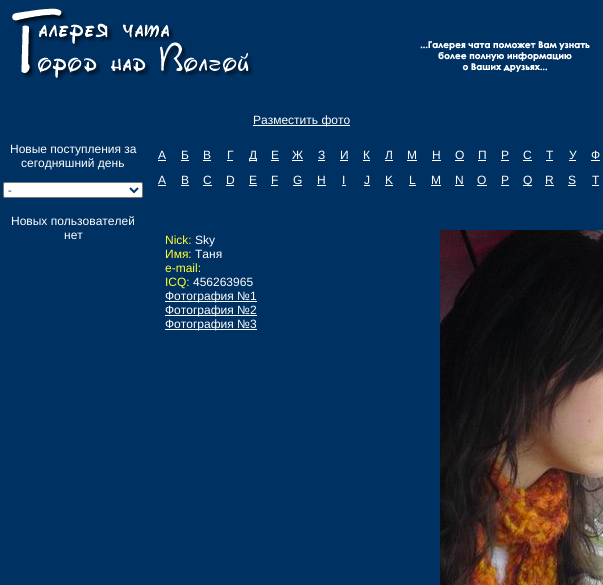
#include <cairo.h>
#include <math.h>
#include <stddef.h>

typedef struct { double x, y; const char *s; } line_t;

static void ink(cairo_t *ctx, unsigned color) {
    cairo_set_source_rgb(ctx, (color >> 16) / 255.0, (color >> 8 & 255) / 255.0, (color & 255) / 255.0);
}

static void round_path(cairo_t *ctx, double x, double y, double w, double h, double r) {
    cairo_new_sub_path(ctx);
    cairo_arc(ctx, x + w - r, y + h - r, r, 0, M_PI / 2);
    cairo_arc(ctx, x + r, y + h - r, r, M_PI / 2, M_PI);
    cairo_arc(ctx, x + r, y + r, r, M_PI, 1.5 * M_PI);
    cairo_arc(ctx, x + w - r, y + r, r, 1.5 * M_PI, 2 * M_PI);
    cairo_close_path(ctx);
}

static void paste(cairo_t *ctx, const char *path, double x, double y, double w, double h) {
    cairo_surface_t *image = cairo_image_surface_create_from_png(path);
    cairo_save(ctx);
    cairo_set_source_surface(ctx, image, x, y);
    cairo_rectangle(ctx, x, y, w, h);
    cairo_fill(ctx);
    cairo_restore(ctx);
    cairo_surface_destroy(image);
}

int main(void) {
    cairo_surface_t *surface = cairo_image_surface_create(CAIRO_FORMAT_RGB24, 603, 585);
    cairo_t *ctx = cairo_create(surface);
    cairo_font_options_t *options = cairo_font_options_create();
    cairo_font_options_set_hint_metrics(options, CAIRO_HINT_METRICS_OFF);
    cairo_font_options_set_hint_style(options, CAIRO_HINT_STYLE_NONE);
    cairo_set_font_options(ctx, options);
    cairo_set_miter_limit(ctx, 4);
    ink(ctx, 0x003163);
    cairo_paint(ctx);
    paste(ctx, "media/1.png", 12, 8, 578, 72);
    ink(ctx, 0xFFFFFF);
    cairo_rectangle(ctx, 253, 125, 97, 1);
    cairo_fill(ctx);
    cairo_select_font_face(ctx, "Liberation Sans", CAIRO_FONT_SLANT_NORMAL, CAIRO_FONT_WEIGHT_NORMAL);
    cairo_set_font_size(ctx, 12);
    {
        static const line_t items[] = {
            {253, 124, "Разместить фото"},
            {10, 153, "Новые поступления за"},
            {21, 167, "сегодняшний день"},
        };
        for (size_t i = 0; i < sizeof items / sizeof *items; i++) {
            cairo_move_to(ctx, items[i].x, items[i].y);
            cairo_show_text(ctx, items[i].s);
        }
    }
    round_path(ctx, 3.5, 182.5, 139, 15, 1.5);
    cairo_fill_preserve(ctx);
    ink(ctx, 0x767676);
    cairo_set_line_width(ctx, 1);
    cairo_stroke(ctx);
    cairo_new_path(ctx);
    cairo_move_to(ctx, 130, 188);
    cairo_line_to(ctx, 134, 192);
    cairo_line_to(ctx, 138, 188);
    ink(ctx, 0x003366);
    cairo_set_line_width(ctx, 2);
    cairo_stroke(ctx);
    cairo_set_font_size(ctx, 11);
    cairo_move_to(ctx, 8, 194);
    cairo_show_text(ctx, "-");
    cairo_set_font_size(ctx, 12);
    ink(ctx, 0xFFFFFF);
    {
        static const line_t items[] = {
            {11, 225, "Новых пользователей"},
            {64, 239, "нет"},
            {158, 159, "А"},
        };
        for (size_t i = 0; i < sizeof items / sizeof *items; i++) {
            cairo_move_to(ctx, items[i].x, items[i].y);
            cairo_show_text(ctx, items[i].s);
        }
    }
    cairo_rectangle(ctx, 158, 160, 8, 1);
    cairo_fill(ctx);
    cairo_move_to(ctx, 181, 159);
    cairo_show_text(ctx, "Б");
    cairo_rectangle(ctx, 181, 160, 8, 1);
    cairo_fill(ctx);
    cairo_move_to(ctx, 203, 159);
    cairo_show_text(ctx, "В");
    cairo_rectangle(ctx, 203, 160, 8, 1);
    cairo_fill(ctx);
    cairo_move_to(ctx, 227, 159);
    cairo_show_text(ctx, "Г");
    cairo_rectangle(ctx, 227, 160, 6, 1);
    cairo_fill(ctx);
    cairo_rectangle(ctx, 249, 160, 8, 1);
    cairo_fill(ctx);
    cairo_move_to(ctx, 249, 159);
    cairo_show_text(ctx, "Д");
    cairo_move_to(ctx, 271, 159);
    cairo_show_text(ctx, "Е");
    cairo_rectangle(ctx, 271, 160, 8, 1);
    cairo_fill(ctx);
    cairo_move_to(ctx, 292, 159);
    cairo_show_text(ctx, "Ж");
    cairo_rectangle(ctx, 292, 160, 11, 1);
    cairo_fill(ctx);
    cairo_move_to(ctx, 318, 159);
    cairo_show_text(ctx, "З");
    cairo_rectangle(ctx, 318, 160, 7, 1);
    cairo_fill(ctx);
    cairo_move_to(ctx, 340, 159);
    cairo_show_text(ctx, "И");
    cairo_rectangle(ctx, 340, 160, 8, 1);
    cairo_fill(ctx);
    cairo_move_to(ctx, 363, 159);
    cairo_show_text(ctx, "К");
    cairo_rectangle(ctx, 363, 160, 7, 1);
    cairo_fill(ctx);
    cairo_move_to(ctx, 385, 159);
    cairo_show_text(ctx, "Л");
    cairo_rectangle(ctx, 385, 160, 8, 1);
    cairo_fill(ctx);
    cairo_move_to(ctx, 407, 159);
    cairo_show_text(ctx, "М");
    cairo_rectangle(ctx, 407, 160, 10, 1);
    cairo_fill(ctx);
    cairo_move_to(ctx, 432, 159);
    cairo_show_text(ctx, "Н");
    cairo_rectangle(ctx, 432, 160, 9, 1);
    cairo_fill(ctx);
    cairo_move_to(ctx, 455, 159);
    cairo_show_text(ctx, "О");
    cairo_rectangle(ctx, 455, 160, 9, 1);
    cairo_fill(ctx);
    cairo_move_to(ctx, 478, 159);
    cairo_show_text(ctx, "П");
    cairo_rectangle(ctx, 478, 160, 8, 1);
    cairo_fill(ctx);
    cairo_move_to(ctx, 501, 159);
    cairo_show_text(ctx, "Р");
    cairo_rectangle(ctx, 501, 160, 8, 1);
    cairo_fill(ctx);
    cairo_move_to(ctx, 523, 159);
    cairo_show_text(ctx, "С");
    cairo_rectangle(ctx, 523, 160, 9, 1);
    cairo_fill(ctx);
    cairo_move_to(ctx, 546, 159);
    cairo_show_text(ctx, "Т");
    cairo_rectangle(ctx, 546, 160, 7, 1);
    cairo_fill(ctx);
    cairo_move_to(ctx, 569, 159);
    cairo_show_text(ctx, "У");
    cairo_rectangle(ctx, 569, 160, 7, 1);
    cairo_fill(ctx);
    cairo_move_to(ctx, 591, 159);
    cairo_show_text(ctx, "Ф");
    cairo_rectangle(ctx, 591, 160, 9, 1);
    cairo_fill(ctx);
    cairo_move_to(ctx, 158, 184);
    cairo_show_text(ctx, "A");
    cairo_rectangle(ctx, 158, 185, 8, 1);
    cairo_fill(ctx);
    cairo_move_to(ctx, 181, 184);
    cairo_show_text(ctx, "B");
    cairo_rectangle(ctx, 181, 185, 8, 1);
    cairo_fill(ctx);
    cairo_move_to(ctx, 203, 184);
    cairo_show_text(ctx, "C");
    cairo_rectangle(ctx, 203, 185, 9, 1);
    cairo_fill(ctx);
    cairo_move_to(ctx, 226, 184);
    cairo_show_text(ctx, "D");
    cairo_rectangle(ctx, 226, 185, 8, 1);
    cairo_fill(ctx);
    cairo_move_to(ctx, 249, 184);
    cairo_show_text(ctx, "E");
    cairo_rectangle(ctx, 249, 185, 8, 1);
    cairo_fill(ctx);
    cairo_move_to(ctx, 271, 184);
    cairo_show_text(ctx, "F");
    cairo_rectangle(ctx, 271, 185, 7, 1);
    cairo_fill(ctx);
    cairo_move_to(ctx, 293, 184);
    cairo_show_text(ctx, "G");
    cairo_rectangle(ctx, 293, 185, 9, 1);
    cairo_fill(ctx);
    cairo_move_to(ctx, 317, 184);
    cairo_show_text(ctx, "H");
    cairo_rectangle(ctx, 317, 185, 9, 1);
    cairo_fill(ctx);
    cairo_move_to(ctx, 342, 184);
    cairo_show_text(ctx, "I");
    cairo_rectangle(ctx, 342, 185, 4, 1);
    cairo_fill(ctx);
    cairo_move_to(ctx, 364, 184);
    cairo_show_text(ctx, "J");
    cairo_rectangle(ctx, 364, 185, 6, 1);
    cairo_fill(ctx);
    cairo_move_to(ctx, 385, 184);
    cairo_show_text(ctx, "K");
    cairo_rectangle(ctx, 385, 185, 8, 1);
    cairo_fill(ctx);
    cairo_move_to(ctx, 409, 184);
    cairo_show_text(ctx, "L");
    cairo_rectangle(ctx, 409, 185, 7, 1);
    cairo_fill(ctx);
    cairo_move_to(ctx, 431, 184);
    cairo_show_text(ctx, "M");
    cairo_rectangle(ctx, 431, 185, 10, 1);
    cairo_fill(ctx);
    cairo_move_to(ctx, 455, 184);
    cairo_show_text(ctx, "N");
    cairo_rectangle(ctx, 455, 185, 9, 1);
    cairo_fill(ctx);
    cairo_move_to(ctx, 477, 184);
    cairo_show_text(ctx, "O");
    cairo_rectangle(ctx, 477, 185, 10, 1);
    cairo_fill(ctx);
    cairo_move_to(ctx, 501, 184);
    cairo_show_text(ctx, "P");
    cairo_rectangle(ctx, 501, 185, 8, 1);
    cairo_fill(ctx);
    cairo_rectangle(ctx, 523, 185, 9, 1);
    cairo_fill(ctx);
    cairo_move_to(ctx, 523, 184);
    cairo_show_text(ctx, "Q");
    cairo_move_to(ctx, 545, 184);
    cairo_show_text(ctx, "R");
    cairo_rectangle(ctx, 545, 185, 9, 1);
    cairo_fill(ctx);
    cairo_move_to(ctx, 568, 184);
    cairo_show_text(ctx, "S");
    cairo_rectangle(ctx, 568, 185, 8, 1);
    cairo_fill(ctx);
    cairo_move_to(ctx, 592, 184);
    cairo_show_text(ctx, "T");
    cairo_rectangle(ctx, 592, 185, 7, 1);
    cairo_fill(ctx);
    ink(ctx, 0xFFFF33);
    cairo_move_to(ctx, 165, 244);
    cairo_show_text(ctx, "Nick:");
    ink(ctx, 0xFFFFFF);
    cairo_move_to(ctx, 195, 244);
    cairo_show_text(ctx, "Sky");
    ink(ctx, 0xFFFF33);
    cairo_move_to(ctx, 165, 258);
    cairo_show_text(ctx, "Имя:");
    ink(ctx, 0xFFFFFF);
    cairo_move_to(ctx, 195, 258);
    cairo_show_text(ctx, "Таня");
    ink(ctx, 0xFFFF33);
    cairo_move_to(ctx, 165, 272);
    cairo_show_text(ctx, "e-mail:");
    cairo_move_to(ctx, 165, 286);
    cairo_show_text(ctx, "ICQ:");
    ink(ctx, 0xFFFFFF);
    cairo_move_to(ctx, 193, 286);
    cairo_show_text(ctx, "456263965");
    cairo_rectangle(ctx, 165, 301, 92, 1);
    cairo_fill(ctx);
    cairo_move_to(ctx, 165, 300);
    cairo_show_text(ctx, "Фотография №1");
    cairo_rectangle(ctx, 165, 315, 92, 1);
    cairo_fill(ctx);
    cairo_move_to(ctx, 165, 314);
    cairo_show_text(ctx, "Фотография №2");
    cairo_rectangle(ctx, 165, 329, 92, 1);
    cairo_fill(ctx);
    cairo_move_to(ctx, 165, 328);
    cairo_show_text(ctx, "Фотография №3");
    paste(ctx, "media/2.png", 440, 230, 163, 355);
    cairo_surface_write_to_png(surface, "image.png");
    cairo_font_options_destroy(options);
    cairo_destroy(ctx);
    cairo_surface_destroy(surface);
    return 0;
}
